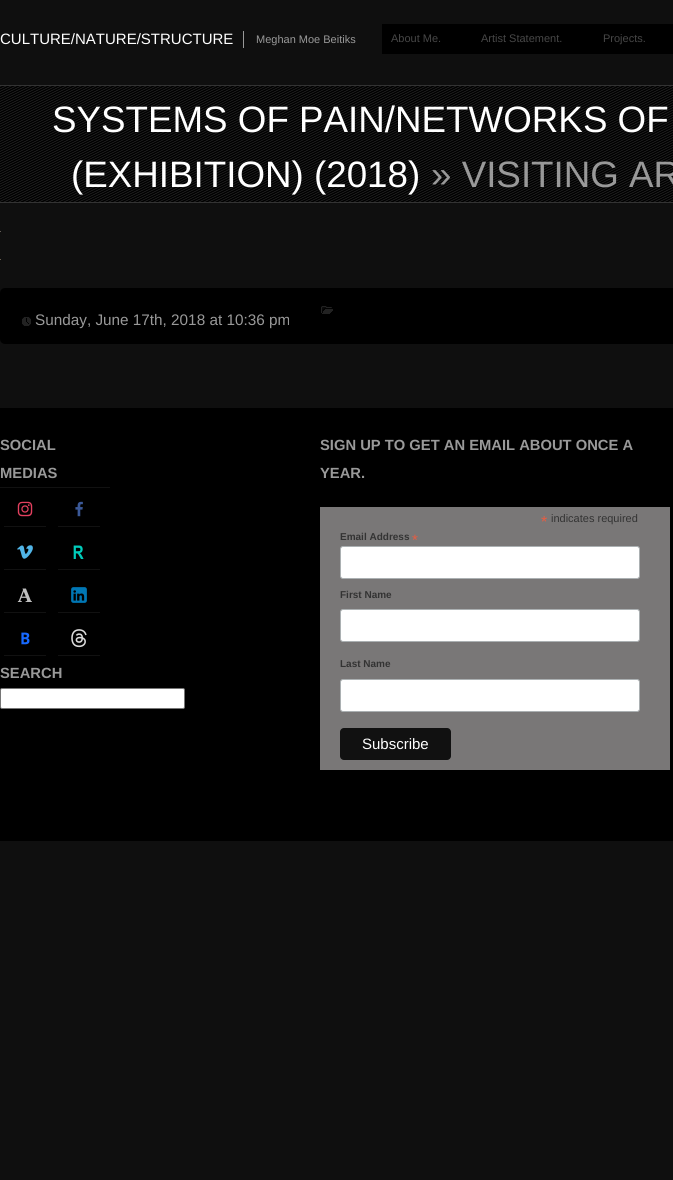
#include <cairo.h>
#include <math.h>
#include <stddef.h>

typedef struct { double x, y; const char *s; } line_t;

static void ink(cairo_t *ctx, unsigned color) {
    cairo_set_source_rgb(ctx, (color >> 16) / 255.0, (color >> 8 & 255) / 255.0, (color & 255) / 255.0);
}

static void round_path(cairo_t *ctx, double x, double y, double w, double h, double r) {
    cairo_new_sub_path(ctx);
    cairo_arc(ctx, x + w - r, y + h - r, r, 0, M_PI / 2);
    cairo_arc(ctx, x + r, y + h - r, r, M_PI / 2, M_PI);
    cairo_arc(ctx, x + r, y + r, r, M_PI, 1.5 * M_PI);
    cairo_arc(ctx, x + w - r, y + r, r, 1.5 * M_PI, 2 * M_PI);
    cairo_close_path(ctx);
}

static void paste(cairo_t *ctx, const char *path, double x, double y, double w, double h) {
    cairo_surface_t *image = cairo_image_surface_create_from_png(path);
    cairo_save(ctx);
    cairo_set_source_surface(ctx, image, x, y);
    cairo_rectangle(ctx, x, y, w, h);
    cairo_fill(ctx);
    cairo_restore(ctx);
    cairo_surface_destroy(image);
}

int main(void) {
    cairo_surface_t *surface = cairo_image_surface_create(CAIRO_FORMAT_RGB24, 673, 1180);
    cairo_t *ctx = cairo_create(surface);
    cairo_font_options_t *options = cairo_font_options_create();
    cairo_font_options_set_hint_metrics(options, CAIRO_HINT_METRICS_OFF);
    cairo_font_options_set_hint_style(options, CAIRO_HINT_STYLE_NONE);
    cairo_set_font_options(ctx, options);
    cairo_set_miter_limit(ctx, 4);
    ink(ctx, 0x0F0F0F);
    cairo_paint(ctx);
    cairo_select_font_face(ctx, "Liberation Sans", CAIRO_FONT_SLANT_NORMAL, CAIRO_FONT_WEIGHT_NORMAL);
    cairo_set_font_size(ctx, 15);
    ink(ctx, 0xFFFFFF);
    cairo_move_to(ctx, 0, 44);
    cairo_show_text(ctx, "CULTURE/NATURE/STRUCTURE");
    ink(ctx, 0x999999);
    cairo_rectangle(ctx, 243, 31, 1, 17);
    cairo_fill(ctx);
    cairo_set_font_size(ctx, 11);
    cairo_move_to(ctx, 256, 43);
    cairo_show_text(ctx, "Meghan Moe Beitiks");
    ink(ctx, 0x000000);
    cairo_rectangle(ctx, 382, 24, 291, 30);
    cairo_fill(ctx);
    ink(ctx, 0x474747);
    {
        static const line_t items[] = {
            {391, 42, "About Me."},
            {481, 42, "Artist Statement."},
            {603, 42, "Projects."},
        };
        for (size_t i = 0; i < sizeof items / sizeof *items; i++) {
            cairo_move_to(ctx, items[i].x, items[i].y);
            cairo_show_text(ctx, items[i].s);
        }
    }
    paste(ctx, "media/1.png", 0, 86, 673, 116);
    ink(ctx, 0x333333);
    cairo_rectangle(ctx, 0, 85, 673, 1);
    cairo_fill(ctx);
    cairo_rectangle(ctx, 0, 202, 673, 1);
    cairo_fill(ctx);
    cairo_set_font_size(ctx, 36.75);
    ink(ctx, 0xFFFFFF);
    cairo_move_to(ctx, 52, 132);
    cairo_show_text(ctx, "SYSTEMS OF PAIN/NETWORKS OF");
    cairo_move_to(ctx, 71, 187);
    cairo_show_text(ctx, "(EXHIBITION) (2018)");
    ink(ctx, 0x999999);
    cairo_move_to(ctx, 431, 187);
    cairo_show_text(ctx, "» VISITING AR");
    ink(ctx, 0x645E58);
    cairo_rectangle(ctx, 0, 231, 1, 1);
    cairo_fill(ctx);
    ink(ctx, 0x6C6152);
    cairo_rectangle(ctx, 0, 259, 1, 1);
    cairo_fill(ctx);
    ink(ctx, 0x000000);
    round_path(ctx, 0, 288, 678, 56, 5);
    cairo_fill(ctx);
    paste(ctx, "media/2.png", 321, 306, 12, 8);
    paste(ctx, "media/3.png", 22, 317, 9, 9);
    cairo_set_font_size(ctx, 15.3);
    ink(ctx, 0x999999);
    cairo_move_to(ctx, 35, 325);
    cairo_show_text(ctx, "Sunday, June 17th, 2018 at 10:36 pm");
    ink(ctx, 0x000000);
    cairo_rectangle(ctx, 0, 408, 673, 433);
    cairo_fill(ctx);
    cairo_select_font_face(ctx, "Liberation Sans", CAIRO_FONT_SLANT_NORMAL, CAIRO_FONT_WEIGHT_BOLD);
    cairo_set_font_size(ctx, 14.75);
    ink(ctx, 0x999999);
    cairo_move_to(ctx, 0, 450);
    cairo_show_text(ctx, "SOCIAL");
    cairo_move_to(ctx, 0, 478);
    cairo_show_text(ctx, "MEDIAS");
    ink(ctx, 0x111111);
    cairo_rectangle(ctx, 0, 487, 110, 1);
    cairo_fill(ctx);
    cairo_rectangle(ctx, 4, 526, 42, 1);
    cairo_fill(ctx);
    paste(ctx, "media/4.png", 17, 501, 16, 16);
    cairo_rectangle(ctx, 58, 526, 42, 1);
    cairo_fill(ctx);
    paste(ctx, "media/5.png", 75, 501, 8, 16);
    cairo_rectangle(ctx, 4, 569, 42, 1);
    cairo_fill(ctx);
    paste(ctx, "media/6.png", 17, 545, 16, 14);
    cairo_rectangle(ctx, 58, 569, 42, 1);
    cairo_fill(ctx);
    paste(ctx, "media/7.png", 73, 545, 11, 14);
    cairo_rectangle(ctx, 4, 612, 42, 1);
    cairo_fill(ctx);
    paste(ctx, "media/8.png", 17, 588, 15, 14);
    cairo_rectangle(ctx, 58, 612, 42, 1);
    cairo_fill(ctx);
    paste(ctx, "media/9.png", 71, 587, 16, 16);
    cairo_rectangle(ctx, 4, 655, 42, 1);
    cairo_fill(ctx);
    paste(ctx, "media/10.png", 21, 632, 9, 13);
    cairo_rectangle(ctx, 58, 655, 42, 1);
    cairo_fill(ctx);
    paste(ctx, "media/11.png", 71, 629, 16, 19);
    ink(ctx, 0x999999);
    cairo_move_to(ctx, 0, 678);
    cairo_show_text(ctx, "SEARCH");
    ink(ctx, 0xFFFFFF);
    round_path(ctx, 0.5, 688.5, 184, 20, 1.5);
    cairo_fill_preserve(ctx);
    ink(ctx, 0x767676);
    cairo_set_line_width(ctx, 1);
    cairo_stroke(ctx);
    ink(ctx, 0x999999);
    cairo_move_to(ctx, 320, 450);
    cairo_show_text(ctx, "SIGN UP TO GET AN EMAIL ABOUT ONCE A");
    cairo_move_to(ctx, 320, 478);
    cairo_show_text(ctx, "YEAR.");
    ink(ctx, 0x797777);
    cairo_rectangle(ctx, 320, 507, 350, 263);
    cairo_fill(ctx);
    cairo_select_font_face(ctx, "Liberation Sans", CAIRO_FONT_SLANT_NORMAL, CAIRO_FONT_WEIGHT_NORMAL);
    cairo_set_font_size(ctx, 16);
    ink(ctx, 0xE85C41);
    cairo_move_to(ctx, 541, 527);
    cairo_show_text(ctx, "*");
    cairo_set_font_size(ctx, 11);
    ink(ctx, 0x333333);
    cairo_move_to(ctx, 551, 522);
    cairo_show_text(ctx, "indicates required");
    cairo_select_font_face(ctx, "Liberation Sans", CAIRO_FONT_SLANT_NORMAL, CAIRO_FONT_WEIGHT_BOLD);
    cairo_set_font_size(ctx, 10);
    cairo_move_to(ctx, 340, 540);
    cairo_show_text(ctx, "Email Address");
    cairo_select_font_face(ctx, "Liberation Sans", CAIRO_FONT_SLANT_NORMAL, CAIRO_FONT_WEIGHT_NORMAL);
    cairo_set_font_size(ctx, 15);
    ink(ctx, 0xE85C41);
    cairo_move_to(ctx, 412, 545);
    cairo_show_text(ctx, "*");
    ink(ctx, 0xFFFFFF);
    round_path(ctx, 340.5, 546.5, 299, 32, 2.5);
    cairo_fill_preserve(ctx);
    ink(ctx, 0xABB0B2);
    cairo_stroke(ctx);
    cairo_select_font_face(ctx, "Liberation Sans", CAIRO_FONT_SLANT_NORMAL, CAIRO_FONT_WEIGHT_BOLD);
    cairo_set_font_size(ctx, 10);
    ink(ctx, 0x333333);
    cairo_move_to(ctx, 340, 598);
    cairo_show_text(ctx, "First Name");
    ink(ctx, 0xFFFFFF);
    round_path(ctx, 340.5, 609.5, 299, 32, 2.5);
    cairo_fill_preserve(ctx);
    ink(ctx, 0xABB0B2);
    cairo_stroke(ctx);
    ink(ctx, 0x333333);
    cairo_move_to(ctx, 340, 667);
    cairo_show_text(ctx, "Last Name");
    ink(ctx, 0xFFFFFF);
    round_path(ctx, 340.5, 679.5, 299, 32, 2.5);
    cairo_fill_preserve(ctx);
    ink(ctx, 0xABB0B2);
    cairo_stroke(ctx);
    ink(ctx, 0x111111);
    round_path(ctx, 340, 728, 111, 32, 4);
    cairo_fill(ctx);
    cairo_select_font_face(ctx, "Liberation Sans", CAIRO_FONT_SLANT_NORMAL, CAIRO_FONT_WEIGHT_NORMAL);
    cairo_set_font_size(ctx, 15);
    ink(ctx, 0xFFFFFF);
    cairo_move_to(ctx, 362, 749);
    cairo_show_text(ctx, "Subscribe");
    cairo_surface_write_to_png(surface, "image.png");
    cairo_font_options_destroy(options);
    cairo_destroy(ctx);
    cairo_surface_destroy(surface);
    return 0;
}
